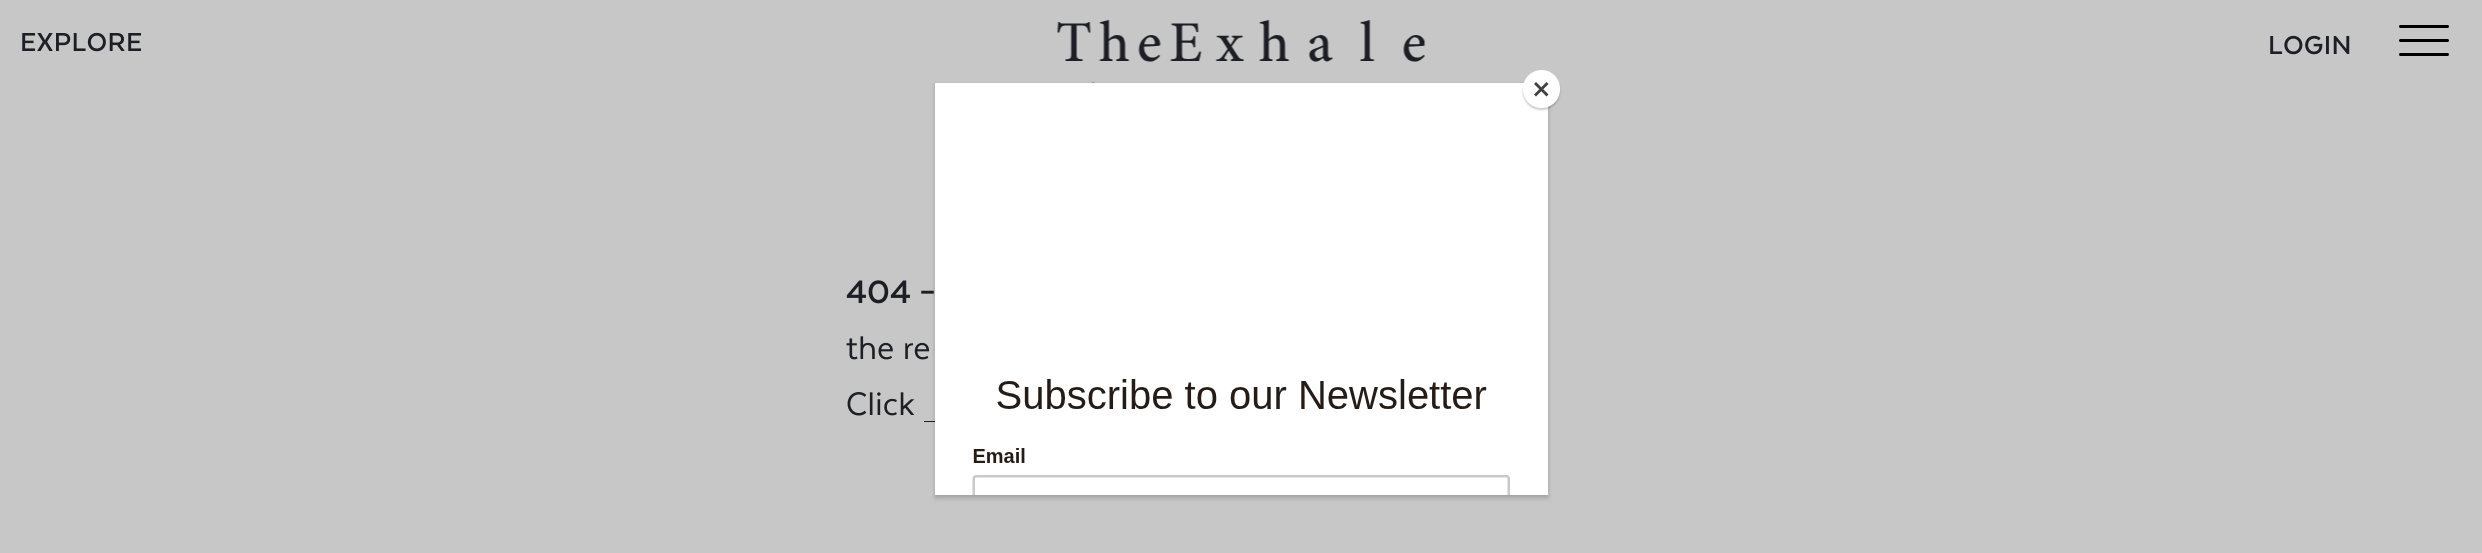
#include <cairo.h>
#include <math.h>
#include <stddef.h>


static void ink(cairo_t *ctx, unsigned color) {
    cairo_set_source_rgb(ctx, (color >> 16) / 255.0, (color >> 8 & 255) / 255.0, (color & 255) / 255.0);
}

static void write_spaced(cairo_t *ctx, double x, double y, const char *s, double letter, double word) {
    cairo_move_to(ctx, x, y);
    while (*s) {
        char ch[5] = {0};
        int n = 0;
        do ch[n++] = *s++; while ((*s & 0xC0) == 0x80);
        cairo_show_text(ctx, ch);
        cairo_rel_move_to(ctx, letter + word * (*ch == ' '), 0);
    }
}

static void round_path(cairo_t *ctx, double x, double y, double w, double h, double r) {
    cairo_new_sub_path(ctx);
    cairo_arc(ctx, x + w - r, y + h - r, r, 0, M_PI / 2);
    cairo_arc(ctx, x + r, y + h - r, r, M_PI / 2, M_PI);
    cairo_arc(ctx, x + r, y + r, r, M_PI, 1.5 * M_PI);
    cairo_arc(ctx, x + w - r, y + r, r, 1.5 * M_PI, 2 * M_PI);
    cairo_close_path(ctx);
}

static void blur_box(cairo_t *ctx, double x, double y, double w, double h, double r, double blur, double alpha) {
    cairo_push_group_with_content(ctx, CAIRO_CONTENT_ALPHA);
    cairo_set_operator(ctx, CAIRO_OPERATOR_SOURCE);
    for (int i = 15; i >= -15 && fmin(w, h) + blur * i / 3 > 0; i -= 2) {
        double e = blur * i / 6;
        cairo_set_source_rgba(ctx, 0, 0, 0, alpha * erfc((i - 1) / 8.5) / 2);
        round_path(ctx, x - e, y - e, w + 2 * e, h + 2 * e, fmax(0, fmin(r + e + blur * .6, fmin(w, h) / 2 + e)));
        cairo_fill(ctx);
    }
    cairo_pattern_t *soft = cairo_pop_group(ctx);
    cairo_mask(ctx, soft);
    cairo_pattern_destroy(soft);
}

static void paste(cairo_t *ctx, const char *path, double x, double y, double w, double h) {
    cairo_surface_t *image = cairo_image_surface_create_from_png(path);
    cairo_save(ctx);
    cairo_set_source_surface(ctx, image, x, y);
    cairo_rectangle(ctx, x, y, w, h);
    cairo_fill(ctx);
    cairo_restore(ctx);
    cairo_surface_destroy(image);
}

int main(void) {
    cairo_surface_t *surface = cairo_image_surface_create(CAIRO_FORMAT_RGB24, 2482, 553);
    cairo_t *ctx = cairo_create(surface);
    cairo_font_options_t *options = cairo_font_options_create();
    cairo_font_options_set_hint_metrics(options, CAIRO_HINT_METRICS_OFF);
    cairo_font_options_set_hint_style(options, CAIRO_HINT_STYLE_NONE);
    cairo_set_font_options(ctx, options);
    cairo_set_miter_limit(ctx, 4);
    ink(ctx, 0xC7C7C7);
    cairo_paint(ctx);
    cairo_select_font_face(ctx, "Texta", CAIRO_FONT_SLANT_NORMAL, CAIRO_FONT_WEIGHT_BOLD);
    cairo_set_font_size(ctx, 30);
    ink(ctx, 0x1D1E26);
    write_spaced(ctx, 20, 51, "EXPLORE", 0.5, 0);
    paste(ctx, "media/1.png", 1057, 20, 369, 63);
    write_spaced(ctx, 2268, 54, "LOGIN", 0.5, 0);
    ink(ctx, 0x000000);
    round_path(ctx, 2399, 25, 50, 3, 1.5);
    cairo_fill(ctx);
    round_path(ctx, 2399, 39, 50, 3, 1.5);
    cairo_fill(ctx);
    round_path(ctx, 2399, 53, 50, 3, 1.5);
    cairo_fill(ctx);
    cairo_set_font_size(ctx, 37.5);
    ink(ctx, 0x1D1E26);
    cairo_move_to(ctx, 846, 303);
    cairo_show_text(ctx, "404 –");
    cairo_select_font_face(ctx, "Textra", CAIRO_FONT_SLANT_NORMAL, CAIRO_FONT_WEIGHT_NORMAL);
    cairo_move_to(ctx, 846, 359);
    cairo_show_text(ctx, "the re");
    cairo_move_to(ctx, 846, 415);
    cairo_show_text(ctx, "Click");
    cairo_rectangle(ctx, 924, 421, 11, 1);
    cairo_fill(ctx);
    ink(ctx, 0x000000);
    blur_box(ctx, 935, 85, 613, 413, 0, 2.5, 0.2);
    paste(ctx, "media/2.png", 935, 83, 613, 412);
    blur_box(ctx, 1523, 73, 37, 37, 18.5, 1, 0.2);
    ink(ctx, 0xFFFFFF);
    round_path(ctx, 1523, 70, 37, 38, 18.5);
    cairo_fill(ctx);
    ink(ctx, 0x414141);
    cairo_new_path(ctx);
    cairo_move_to(ctx, 1546.5, 82);
    cairo_line_to(ctx, 1548.5, 84);
    cairo_line_to(ctx, 1536, 96.5);
    cairo_line_to(ctx, 1534, 94.5);
    cairo_close_path(ctx);
    cairo_fill(ctx);
    cairo_new_path(ctx);
    cairo_move_to(ctx, 1534, 84);
    cairo_line_to(ctx, 1536, 82);
    cairo_line_to(ctx, 1548.5, 94.5);
    cairo_line_to(ctx, 1546.5, 96.5);
    cairo_close_path(ctx);
    cairo_fill(ctx);
    cairo_surface_write_to_png(surface, "image.png");
    cairo_font_options_destroy(options);
    cairo_destroy(ctx);
    cairo_surface_destroy(surface);
    return 0;
}
